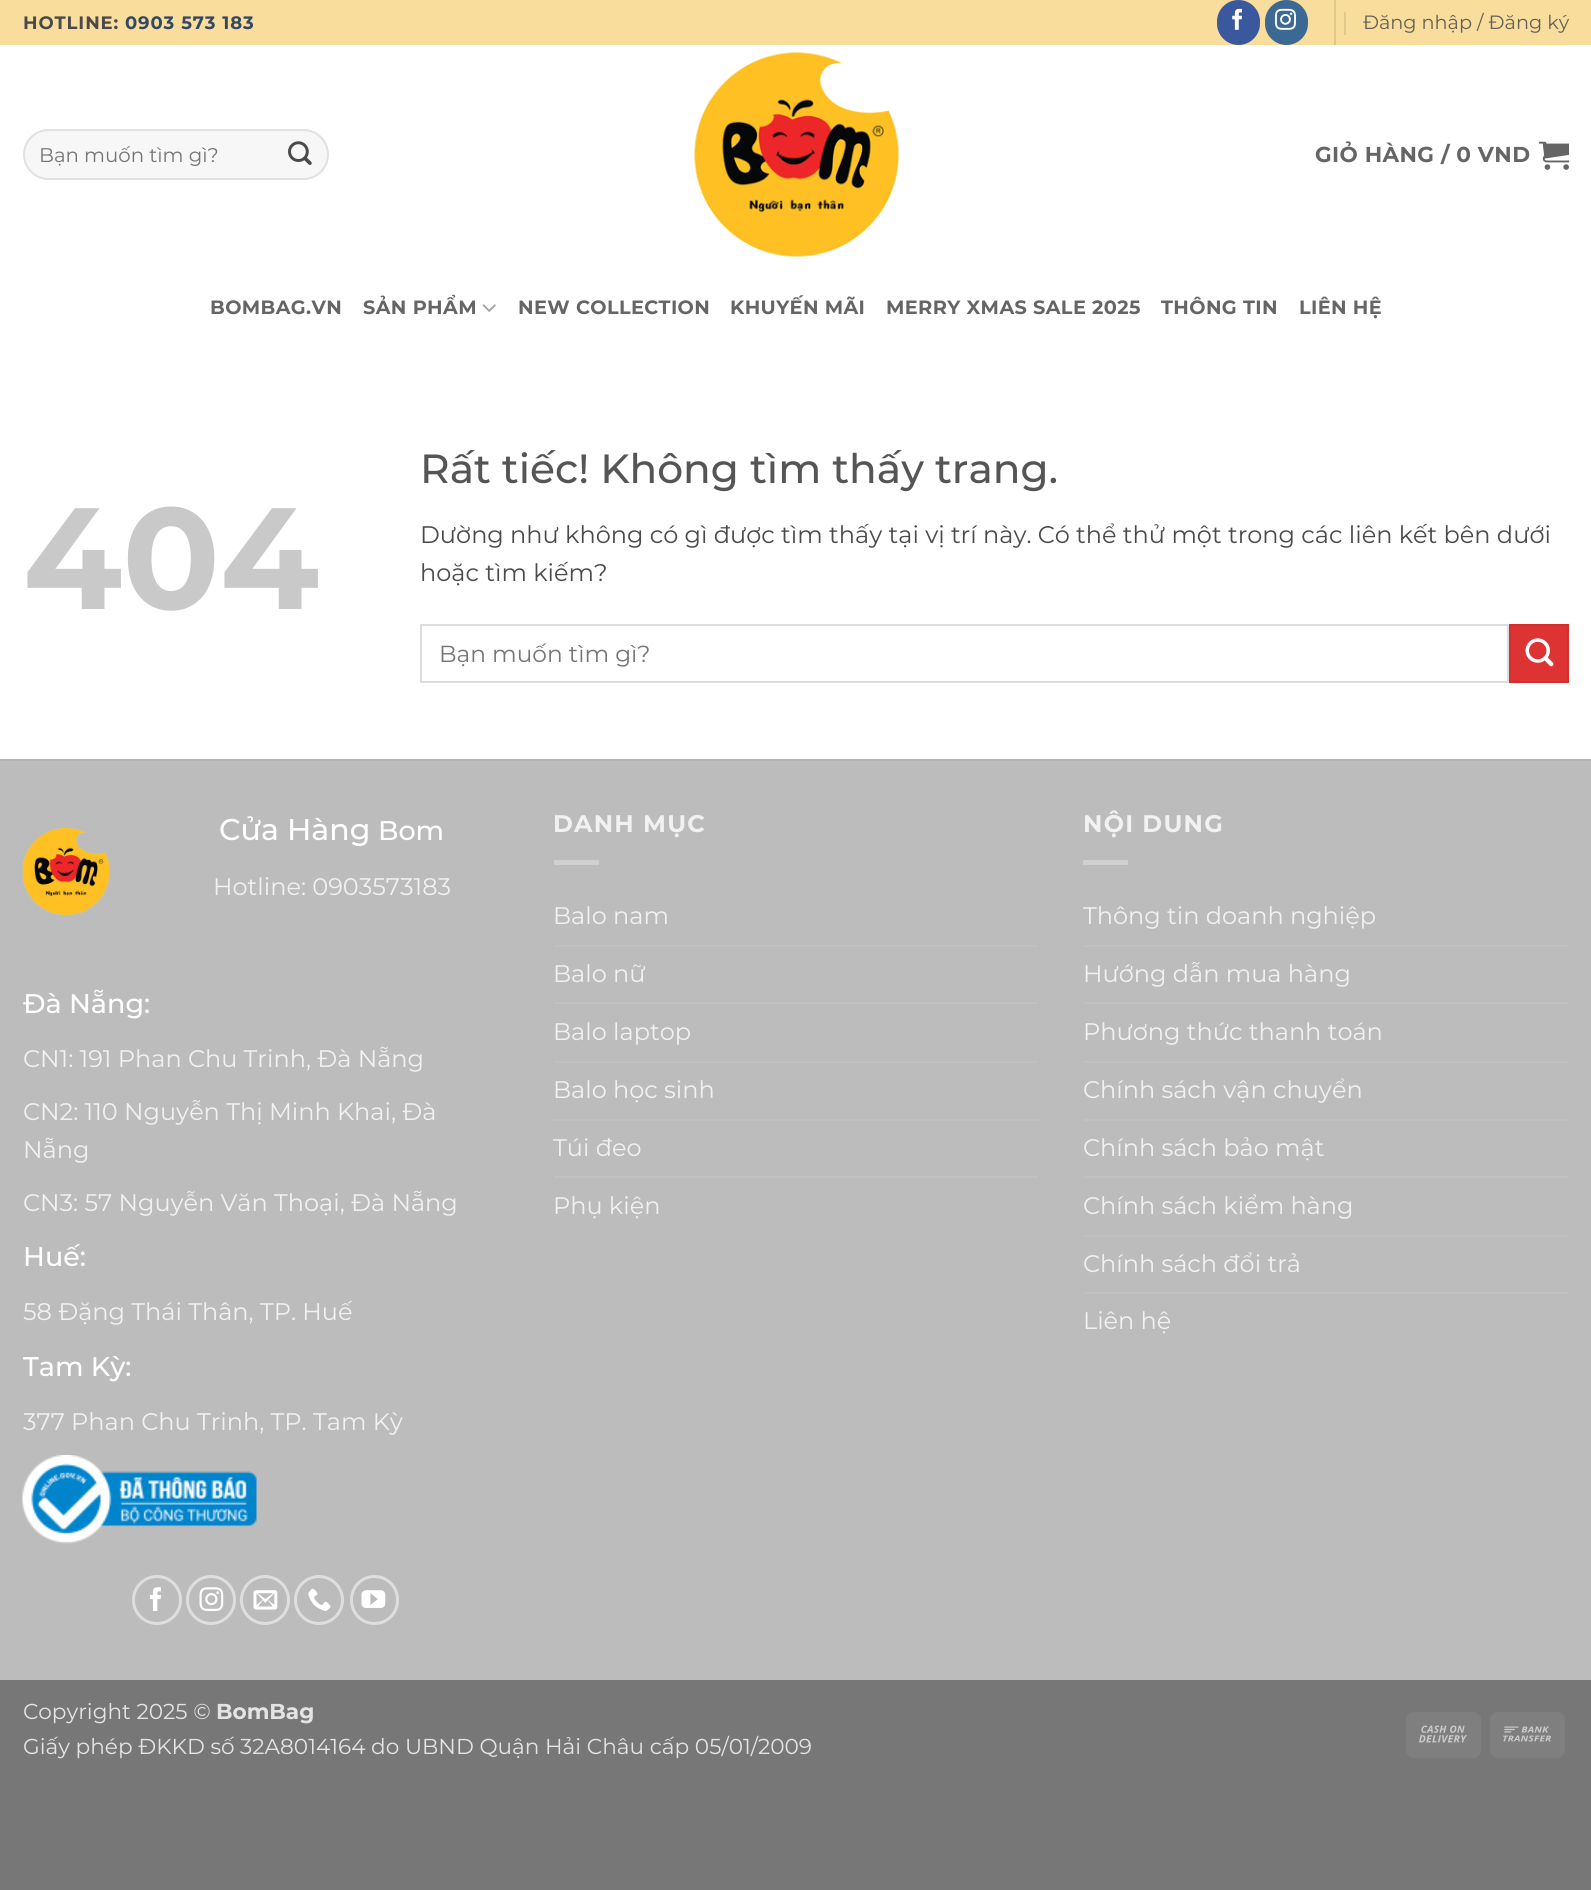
#include <cairo.h>
#include <math.h>
#include <stddef.h>

typedef struct { double x, y; const char *s; } line_t;

static void ink(cairo_t *ctx, unsigned color) {
    cairo_set_source_rgb(ctx, (color >> 16) / 255.0, (color >> 8 & 255) / 255.0, (color & 255) / 255.0);
}

static void write_spaced(cairo_t *ctx, double x, double y, const char *s, double letter, double word) {
    cairo_move_to(ctx, x, y);
    while (*s) {
        char ch[5] = {0};
        int n = 0;
        do ch[n++] = *s++; while ((*s & 0xC0) == 0x80);
        cairo_show_text(ctx, ch);
        cairo_rel_move_to(ctx, letter + word * (*ch == ' '), 0);
    }
}

static void round_path(cairo_t *ctx, double x, double y, double w, double h, double r) {
    cairo_new_sub_path(ctx);
    cairo_arc(ctx, x + w - r, y + h - r, r, 0, M_PI / 2);
    cairo_arc(ctx, x + r, y + h - r, r, M_PI / 2, M_PI);
    cairo_arc(ctx, x + r, y + r, r, M_PI, 1.5 * M_PI);
    cairo_arc(ctx, x + w - r, y + r, r, 1.5 * M_PI, 2 * M_PI);
    cairo_close_path(ctx);
}

static void paste(cairo_t *ctx, const char *path, double x, double y, double w, double h) {
    cairo_surface_t *image = cairo_image_surface_create_from_png(path);
    cairo_save(ctx);
    cairo_set_source_surface(ctx, image, x, y);
    cairo_rectangle(ctx, x, y, w, h);
    cairo_fill(ctx);
    cairo_restore(ctx);
    cairo_surface_destroy(image);
}

int main(void) {
    cairo_surface_t *surface = cairo_image_surface_create(CAIRO_FORMAT_RGB24, 1591, 1890);
    cairo_t *ctx = cairo_create(surface);
    cairo_font_options_t *options = cairo_font_options_create();
    cairo_font_options_set_hint_metrics(options, CAIRO_HINT_METRICS_OFF);
    cairo_font_options_set_hint_style(options, CAIRO_HINT_STYLE_NONE);
    cairo_set_font_options(ctx, options);
    cairo_set_miter_limit(ctx, 4);
    ink(ctx, 0x777777);
    cairo_paint(ctx);
    ink(ctx, 0xFFFFFF);
    cairo_rectangle(ctx, 0, 45, 1591, 714);
    cairo_fill(ctx);
    ink(ctx, 0xF9DD9C);
    cairo_rectangle(ctx, 0, 0, 1591, 45);
    cairo_fill(ctx);
    cairo_select_font_face(ctx, "Montserrat", CAIRO_FONT_SLANT_NORMAL, CAIRO_FONT_WEIGHT_BOLD);
    cairo_set_font_size(ctx, 18);
    ink(ctx, 0x4A4A4A);
    write_spaced(ctx, 23, 29, "HOTLINE:", 0.9, 0);
    ink(ctx, 0x334862);
    write_spaced(ctx, 125, 29, "0903 573 183", 0.9, 0);
    ink(ctx, 0x3A589D);
    round_path(ctx, 1218, 1, 41, 43, 20.5);
    cairo_fill_preserve(ctx);
    cairo_stroke(ctx);
    paste(ctx, "media/1.png", 1232, 8, 10, 22);
    ink(ctx, 0x3B6994);
    round_path(ctx, 1266, 1, 41, 43, 20.5);
    cairo_fill_preserve(ctx);
    cairo_stroke(ctx);
    paste(ctx, "media/2.png", 1275, 8, 21, 22);
    ink(ctx, 0xE0C78C);
    cairo_rectangle(ctx, 1334, 0, 2, 45);
    cairo_fill(ctx);
    cairo_rectangle(ctx, 1344, 12, 2, 23);
    cairo_fill(ctx);
    cairo_select_font_face(ctx, "Montserrat", CAIRO_FONT_SLANT_NORMAL, CAIRO_FONT_WEIGHT_NORMAL);
    cairo_set_font_size(ctx, 19.25);
    ink(ctx, 0x646056);
    cairo_move_to(ctx, 1363, 29);
    cairo_show_text(ctx, "Đăng nhập / Đăng ký");
    ink(ctx, 0xF7F7F7);
    round_path(ctx, 23, 129, 306, 51, 25.5);
    cairo_fill(ctx);
    round_path(ctx, 24, 130, 304, 49, 24.5);
    cairo_set_source_rgba(ctx, 0, 0, 0, 0.09);
    cairo_stroke(ctx);
    cairo_set_font_size(ctx, 19.75);
    ink(ctx, 0x757575);
    cairo_move_to(ctx, 39, 162);
    cairo_show_text(ctx, "Bạn muốn tìm gì?");
    paste(ctx, "media/3.png", 288, 141, 24, 24);
    paste(ctx, "media/4.png", 694, 52, 205, 205);
    cairo_select_font_face(ctx, "Montserrat", CAIRO_FONT_SLANT_NORMAL, CAIRO_FONT_WEIGHT_BOLD);
    cairo_set_font_size(ctx, 21.6);
    ink(ctx, 0x656565);
    write_spaced(ctx, 1315, 162, "GIỎ HÀNG / 0 VND", 0.4, 0);
    paste(ctx, "media/5.png", 1539, 141, 30, 29);
    cairo_set_font_size(ctx, 19.25);
    write_spaced(ctx, 210, 314, "BOMBAG.VN", 0.4, 0);
    write_spaced(ctx, 363, 314, "SẢN PHẨM", 0.4, 0);
    paste(ctx, "media/6.png", 482, 304, 14, 8);
    {
        static const line_t items[] = {
            {518, 314, "NEW COLLECTION"},
            {730, 314, "KHUYẾN MÃI"},
            {886, 314, "MERRY XMAS SALE 2025"},
            {1161, 314, "THÔNG TIN"},
            {1299, 314, "LIÊN HỆ"},
        };
        for (size_t i = 0; i < sizeof items / sizeof *items; i++) {
            write_spaced(ctx, items[i].x, items[i].y, items[i].s, 0.4, 0);
        }
    }
    cairo_set_font_size(ctx, 144);
    ink(ctx, 0xC9C9C9);
    cairo_move_to(ctx, 23, 609);
    cairo_show_text(ctx, "404");
    cairo_select_font_face(ctx, "Montserrat Medium", CAIRO_FONT_SLANT_NORMAL, CAIRO_FONT_WEIGHT_NORMAL);
    cairo_set_font_size(ctx, 40.75);
    ink(ctx, 0x555555);
    cairo_move_to(ctx, 420, 483);
    cairo_show_text(ctx, "Rất tiếc! Không tìm thấy trang.");
    cairo_select_font_face(ctx, "Montserrat", CAIRO_FONT_SLANT_NORMAL, CAIRO_FONT_WEIGHT_NORMAL);
    cairo_set_font_size(ctx, 24);
    ink(ctx, 0x4A4A4A);
    cairo_move_to(ctx, 420, 543);
    cairo_show_text(ctx, "Dường như không có gì được tìm thấy tại vị trí này. Có thể thử một trong các liên kết bên dưới");
    cairo_move_to(ctx, 420, 581);
    cairo_show_text(ctx, "hoặc tìm kiếm?");
    cairo_rectangle(ctx, 421, 625, 1087, 57);
    ink(ctx, 0xDDDDDD);
    cairo_stroke(ctx);
    cairo_set_font_size(ctx, 23.25);
    ink(ctx, 0x757575);
    cairo_move_to(ctx, 439, 662);
    cairo_show_text(ctx, "Bạn muốn tìm gì?");
    ink(ctx, 0xDD3333);
    cairo_rectangle(ctx, 1510, 625, 58, 57);
    cairo_fill_preserve(ctx);
    ink(ctx, 0xD23030);
    cairo_stroke(ctx);
    paste(ctx, "media/7.png", 1525, 638, 29, 29);
    ink(ctx, 0xBCBCBC);
    cairo_rectangle(ctx, 0, 761, 1591, 919);
    cairo_fill(ctx);
    ink(ctx, 0xB3B3B3);
    cairo_rectangle(ctx, 0, 759, 1591, 2);
    cairo_fill(ctx);
    paste(ctx, "media/8.png", 22, 828, 88, 87);
    cairo_select_font_face(ctx, "Montserrat Medium", CAIRO_FONT_SLANT_NORMAL, CAIRO_FONT_WEIGHT_NORMAL);
    cairo_set_font_size(ctx, 30);
    ink(ctx, 0xFFFFFF);
    cairo_move_to(ctx, 219, 840);
    cairo_show_text(ctx, "Cửa Hàng");
    cairo_set_font_size(ctx, 27);
    cairo_move_to(ctx, 378, 840);
    cairo_show_text(ctx, "Bom");
    cairo_select_font_face(ctx, "Montserrat", CAIRO_FONT_SLANT_NORMAL, CAIRO_FONT_WEIGHT_NORMAL);
    cairo_set_font_size(ctx, 24);
    ink(ctx, 0xF1F1F1);
    cairo_move_to(ctx, 213, 895);
    cairo_show_text(ctx, "Hotline: 0903573183");
    cairo_select_font_face(ctx, "Montserrat Medium", CAIRO_FONT_SLANT_NORMAL, CAIRO_FONT_WEIGHT_NORMAL);
    cairo_set_font_size(ctx, 27);
    ink(ctx, 0xFFFFFF);
    cairo_move_to(ctx, 23, 1013);
    cairo_show_text(ctx, "Đà Nẵng:");
    cairo_select_font_face(ctx, "Montserrat", CAIRO_FONT_SLANT_NORMAL, CAIRO_FONT_WEIGHT_NORMAL);
    cairo_set_font_size(ctx, 24);
    ink(ctx, 0xF1F1F1);
    {
        static const line_t items[] = {
            {23, 1067, "CN1: 191 Phan Chu Trinh, Đà Nẵng"},
            {23, 1120, "CN2: 110 Nguyễn Thị Minh Khai, Đà"},
            {23, 1158, "Nẵng"},
            {23, 1211, "CN3: 57 Nguyễn Văn Thoại, Đà Nẵng"},
        };
        for (size_t i = 0; i < sizeof items / sizeof *items; i++) {
            cairo_move_to(ctx, items[i].x, items[i].y);
            cairo_show_text(ctx, items[i].s);
        }
    }
    cairo_select_font_face(ctx, "Montserrat Medium", CAIRO_FONT_SLANT_NORMAL, CAIRO_FONT_WEIGHT_NORMAL);
    cairo_set_font_size(ctx, 27);
    ink(ctx, 0xFFFFFF);
    cairo_move_to(ctx, 23, 1266);
    cairo_show_text(ctx, "Huế:");
    cairo_select_font_face(ctx, "Montserrat", CAIRO_FONT_SLANT_NORMAL, CAIRO_FONT_WEIGHT_NORMAL);
    cairo_set_font_size(ctx, 24);
    ink(ctx, 0xF1F1F1);
    cairo_move_to(ctx, 23, 1320);
    cairo_show_text(ctx, "58 Đặng Thái Thân, TP. Huế");
    cairo_select_font_face(ctx, "Montserrat Medium", CAIRO_FONT_SLANT_NORMAL, CAIRO_FONT_WEIGHT_NORMAL);
    cairo_set_font_size(ctx, 27);
    ink(ctx, 0xFFFFFF);
    cairo_move_to(ctx, 23, 1376);
    cairo_show_text(ctx, "Tam Kỳ:");
    cairo_select_font_face(ctx, "Montserrat", CAIRO_FONT_SLANT_NORMAL, CAIRO_FONT_WEIGHT_NORMAL);
    cairo_set_font_size(ctx, 24);
    ink(ctx, 0xF1F1F1);
    cairo_move_to(ctx, 23, 1430);
    cairo_show_text(ctx, "377 Phan Chu Trinh, TP. Tam Kỳ");
    paste(ctx, "media/9.png", 22, 1455, 235, 89);
    cairo_arc(ctx, 157, 1600, 23.5, 0, 2 * M_PI);
    ink(ctx, 0xDEDEDE);
    cairo_set_line_width(ctx, 3);
    cairo_stroke(ctx);
    paste(ctx, "media/10.png", 149, 1587, 12, 24);
    cairo_arc(ctx, 211, 1600, 23.5, 0, 2 * M_PI);
    cairo_stroke(ctx);
    paste(ctx, "media/11.png", 199, 1587, 25, 24);
    cairo_arc(ctx, 265, 1600, 23.5, 0, 2 * M_PI);
    cairo_stroke(ctx);
    paste(ctx, "media/12.png", 253, 1590, 25, 20);
    cairo_arc(ctx, 319, 1600, 23.5, 0, 2 * M_PI);
    cairo_stroke(ctx);
    paste(ctx, "media/13.png", 308, 1588, 23, 23);
    round_path(ctx, 351.5, 1576.5, 46, 47, 23);
    cairo_stroke(ctx);
    paste(ctx, "media/14.png", 361, 1590, 25, 18);
    cairo_select_font_face(ctx, "Montserrat", CAIRO_FONT_SLANT_NORMAL, CAIRO_FONT_WEIGHT_BOLD);
    ink(ctx, 0xF1F1F1);
    write_spaced(ctx, 553, 832, "DANH MỤC", 1.25, 0);
    ink(ctx, 0xD0D0D0);
    cairo_rectangle(ctx, 554, 860, 45, 5);
    cairo_fill(ctx);
    cairo_select_font_face(ctx, "Montserrat", CAIRO_FONT_SLANT_NORMAL, CAIRO_FONT_WEIGHT_NORMAL);
    ink(ctx, 0xF1F1F1);
    cairo_move_to(ctx, 553, 924);
    cairo_show_text(ctx, "Balo nam");
    ink(ctx, 0xC1C1C1);
    cairo_rectangle(ctx, 554, 945, 484, 2);
    cairo_fill(ctx);
    ink(ctx, 0xF1F1F1);
    cairo_move_to(ctx, 553, 982);
    cairo_show_text(ctx, "Balo nữ");
    ink(ctx, 0xC1C1C1);
    cairo_rectangle(ctx, 554, 1002, 484, 2);
    cairo_fill(ctx);
    ink(ctx, 0xF1F1F1);
    cairo_move_to(ctx, 553, 1040);
    cairo_show_text(ctx, "Balo laptop");
    ink(ctx, 0xC1C1C1);
    cairo_rectangle(ctx, 554, 1061, 484, 2);
    cairo_fill(ctx);
    ink(ctx, 0xF1F1F1);
    cairo_move_to(ctx, 553, 1098);
    cairo_show_text(ctx, "Balo học sinh");
    ink(ctx, 0xC1C1C1);
    cairo_rectangle(ctx, 554, 1119, 484, 2);
    cairo_fill(ctx);
    ink(ctx, 0xF1F1F1);
    cairo_move_to(ctx, 553, 1156);
    cairo_show_text(ctx, "Túi đeo");
    ink(ctx, 0xC1C1C1);
    cairo_rectangle(ctx, 554, 1176, 484, 2);
    cairo_fill(ctx);
    ink(ctx, 0xF1F1F1);
    cairo_move_to(ctx, 553, 1214);
    cairo_show_text(ctx, "Phụ kiện");
    cairo_select_font_face(ctx, "Montserrat", CAIRO_FONT_SLANT_NORMAL, CAIRO_FONT_WEIGHT_BOLD);
    write_spaced(ctx, 1083, 832, "NỘI DUNG", 1.25, 0);
    ink(ctx, 0xD0D0D0);
    cairo_rectangle(ctx, 1083, 860, 45, 5);
    cairo_fill(ctx);
    cairo_select_font_face(ctx, "Montserrat", CAIRO_FONT_SLANT_NORMAL, CAIRO_FONT_WEIGHT_NORMAL);
    ink(ctx, 0xF1F1F1);
    cairo_move_to(ctx, 1083, 924);
    cairo_show_text(ctx, "Thông tin doanh nghiệp");
    ink(ctx, 0xC1C1C1);
    cairo_rectangle(ctx, 1083, 945, 486, 2);
    cairo_fill(ctx);
    ink(ctx, 0xF1F1F1);
    cairo_move_to(ctx, 1083, 982);
    cairo_show_text(ctx, "Hướng dẫn mua hàng");
    ink(ctx, 0xC1C1C1);
    cairo_rectangle(ctx, 1083, 1002, 486, 2);
    cairo_fill(ctx);
    ink(ctx, 0xF1F1F1);
    cairo_move_to(ctx, 1083, 1040);
    cairo_show_text(ctx, "Phương thức thanh toán");
    ink(ctx, 0xC1C1C1);
    cairo_rectangle(ctx, 1083, 1061, 486, 2);
    cairo_fill(ctx);
    ink(ctx, 0xF1F1F1);
    cairo_move_to(ctx, 1083, 1098);
    cairo_show_text(ctx, "Chính sách vận chuyển");
    ink(ctx, 0xC1C1C1);
    cairo_rectangle(ctx, 1083, 1119, 486, 2);
    cairo_fill(ctx);
    ink(ctx, 0xF1F1F1);
    cairo_move_to(ctx, 1083, 1156);
    cairo_show_text(ctx, "Chính sách bảo mật");
    ink(ctx, 0xC1C1C1);
    cairo_rectangle(ctx, 1083, 1176, 486, 2);
    cairo_fill(ctx);
    ink(ctx, 0xF1F1F1);
    cairo_move_to(ctx, 1083, 1214);
    cairo_show_text(ctx, "Chính sách kiểm hàng");
    ink(ctx, 0xC1C1C1);
    cairo_rectangle(ctx, 1083, 1235, 486, 2);
    cairo_fill(ctx);
    ink(ctx, 0xF1F1F1);
    cairo_move_to(ctx, 1083, 1272);
    cairo_show_text(ctx, "Chính sách đổi trả");
    ink(ctx, 0xC1C1C1);
    cairo_rectangle(ctx, 1083, 1292, 486, 2);
    cairo_fill(ctx);
    ink(ctx, 0xF1F1F1);
    cairo_move_to(ctx, 1083, 1329);
    cairo_show_text(ctx, "Liên hệ");
    cairo_set_font_size(ctx, 21.6);
    ink(ctx, 0xE4E4E4);
    cairo_move_to(ctx, 23, 1719);
    cairo_show_text(ctx, "Copyright 2025 ©");
    cairo_select_font_face(ctx, "Montserrat", CAIRO_FONT_SLANT_NORMAL, CAIRO_FONT_WEIGHT_BOLD);
    cairo_move_to(ctx, 216, 1719);
    cairo_show_text(ctx, "BomBag");
    cairo_select_font_face(ctx, "Montserrat", CAIRO_FONT_SLANT_NORMAL, CAIRO_FONT_WEIGHT_NORMAL);
    cairo_move_to(ctx, 23, 1754);
    cairo_show_text(ctx, "Giấy phép ĐKKD số 32A8014164 do UBND Quận Hải Châu cấp 05/01/2009");
    ink(ctx, 0x7F7F7F);
    round_path(ctx, 1406, 1712, 75, 46, 8);
    cairo_fill(ctx);
    paste(ctx, "media/15.png", 1419, 1725, 48, 18);
    round_path(ctx, 1490, 1712, 75, 46, 8);
    cairo_fill(ctx);
    paste(ctx, "media/16.png", 1503, 1726, 48, 16);
    cairo_surface_write_to_png(surface, "image.png");
    cairo_font_options_destroy(options);
    cairo_destroy(ctx);
    cairo_surface_destroy(surface);
    return 0;
}
